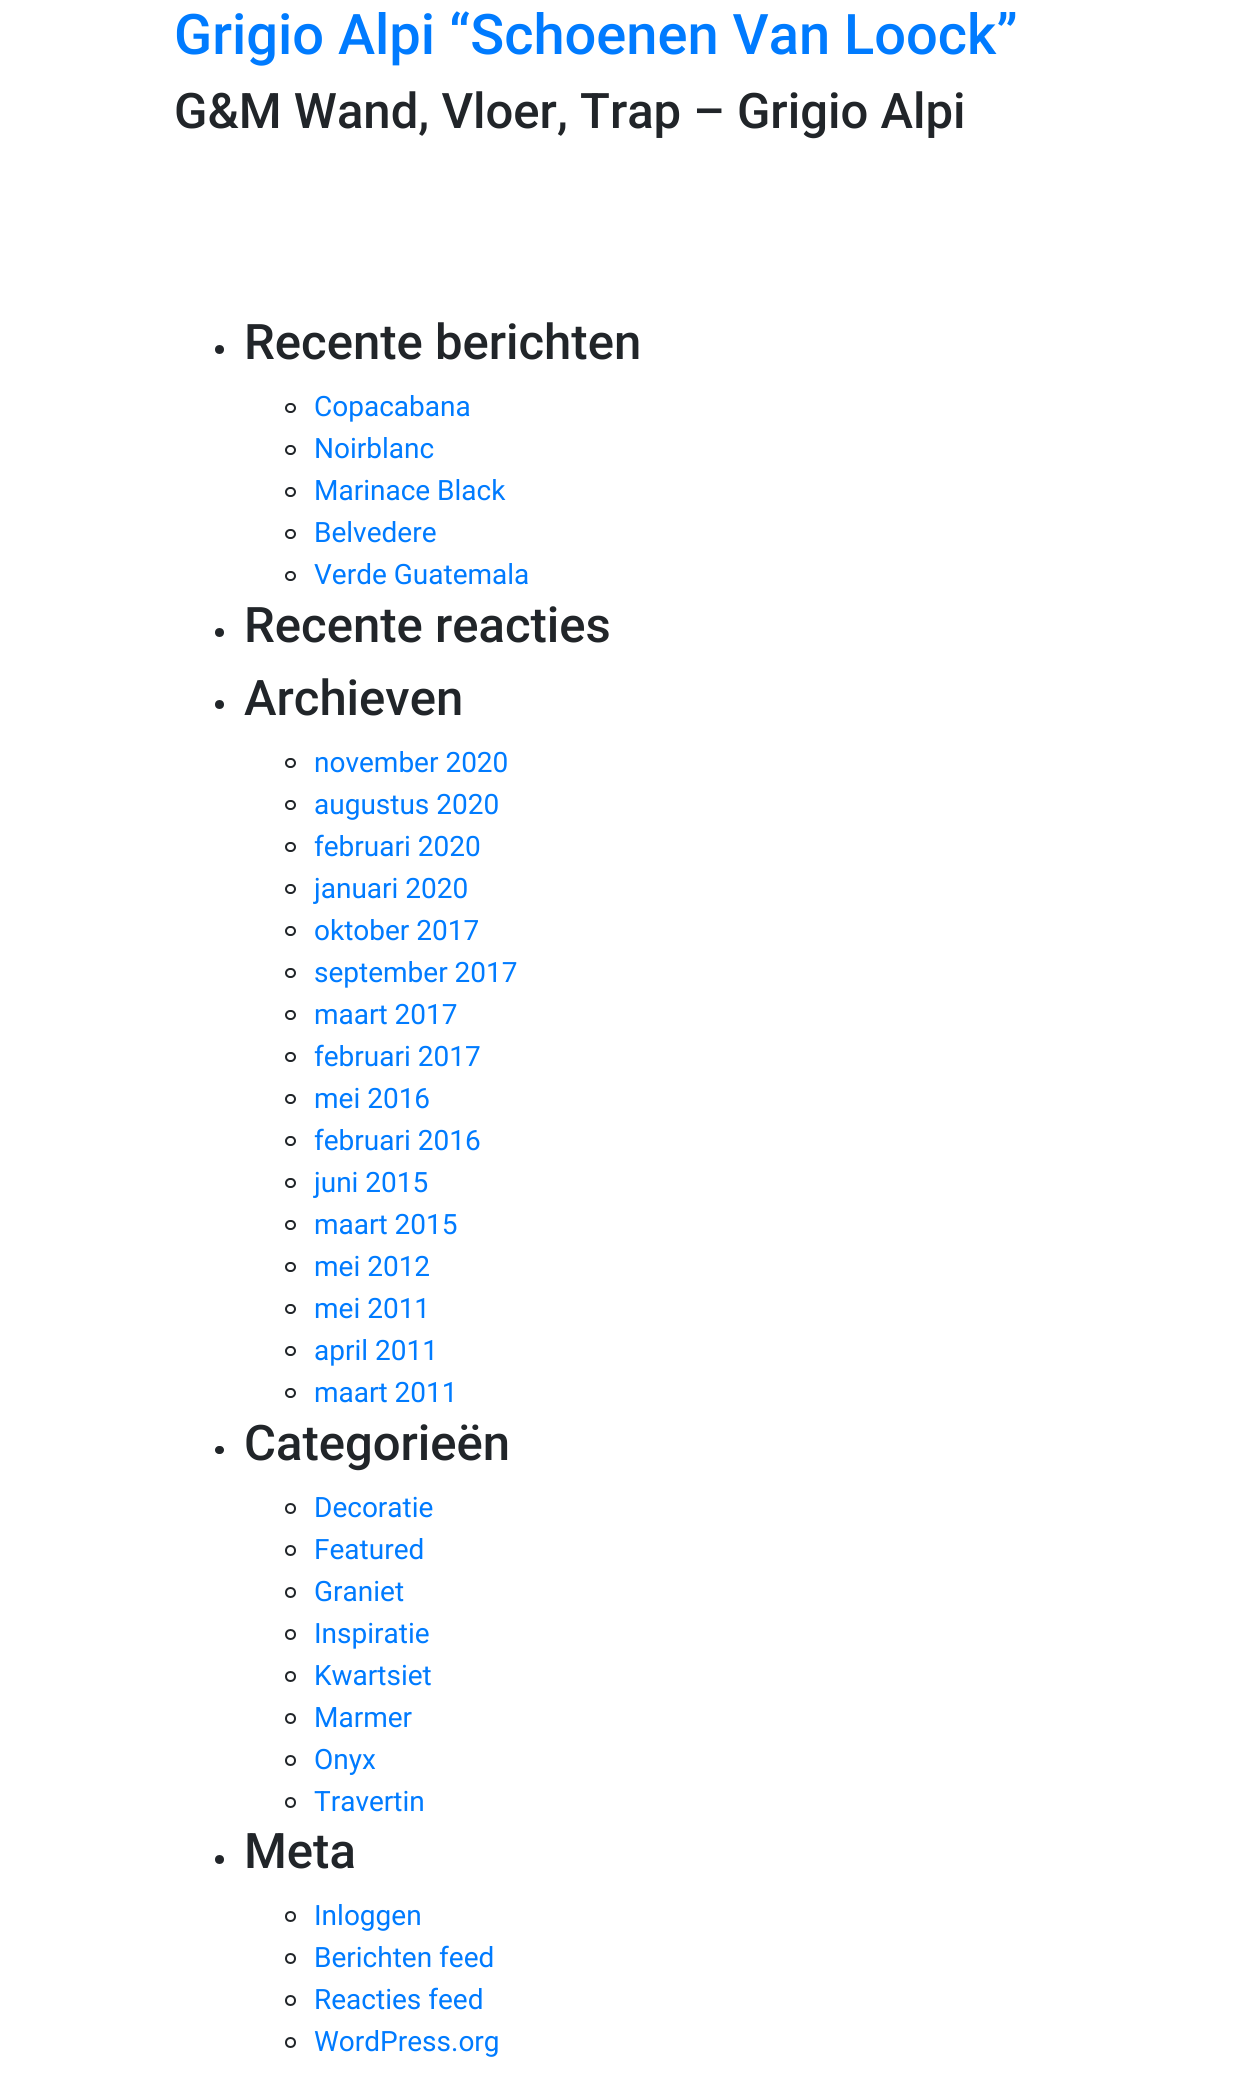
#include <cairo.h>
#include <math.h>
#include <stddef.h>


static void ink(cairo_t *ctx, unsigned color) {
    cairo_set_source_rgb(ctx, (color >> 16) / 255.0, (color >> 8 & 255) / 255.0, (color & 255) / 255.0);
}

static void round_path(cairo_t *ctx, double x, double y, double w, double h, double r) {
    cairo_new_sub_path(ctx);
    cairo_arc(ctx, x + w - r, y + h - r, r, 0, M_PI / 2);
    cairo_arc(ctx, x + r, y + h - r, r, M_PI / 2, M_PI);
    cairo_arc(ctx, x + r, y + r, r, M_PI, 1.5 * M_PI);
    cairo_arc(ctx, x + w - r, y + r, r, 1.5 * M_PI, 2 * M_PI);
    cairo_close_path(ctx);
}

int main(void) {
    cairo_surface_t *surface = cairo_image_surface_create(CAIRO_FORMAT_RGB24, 1240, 2089);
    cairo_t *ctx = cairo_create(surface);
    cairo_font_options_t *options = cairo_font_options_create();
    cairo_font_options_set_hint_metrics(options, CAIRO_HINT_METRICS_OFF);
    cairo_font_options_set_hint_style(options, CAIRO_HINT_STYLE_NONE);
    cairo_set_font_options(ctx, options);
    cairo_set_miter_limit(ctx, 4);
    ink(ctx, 0xFFFFFF);
    cairo_paint(ctx);
    cairo_select_font_face(ctx, "Roboto Medium", CAIRO_FONT_SLANT_NORMAL, CAIRO_FONT_WEIGHT_NORMAL);
    cairo_set_font_size(ctx, 56);
    ink(ctx, 0x007BFF);
    cairo_move_to(ctx, 174, 54);
    cairo_show_text(ctx, "Grigio Alpi “Schoenen Van Loock”");
    cairo_set_font_size(ctx, 49);
    ink(ctx, 0x212529);
    cairo_move_to(ctx, 174, 128);
    cairo_show_text(ctx, "G&M Wand, Vloer, Trap – Grigio Alpi");
    cairo_new_path(ctx);
    cairo_arc(ctx, 219.5, 349.5, 4.5, 0, 2 * M_PI);
    cairo_fill(ctx);
    cairo_move_to(ctx, 244, 359);
    cairo_show_text(ctx, "Recente berichten");
    round_path(ctx, 286, 404, 9, 8, 4);
    cairo_stroke(ctx);
    cairo_select_font_face(ctx, "Roboto", CAIRO_FONT_SLANT_NORMAL, CAIRO_FONT_WEIGHT_NORMAL);
    cairo_set_font_size(ctx, 28);
    ink(ctx, 0x007BFF);
    cairo_move_to(ctx, 314, 416);
    cairo_show_text(ctx, "Copacabana");
    round_path(ctx, 286, 446, 9, 8, 4);
    ink(ctx, 0x212529);
    cairo_stroke(ctx);
    ink(ctx, 0x007BFF);
    cairo_move_to(ctx, 314, 458);
    cairo_show_text(ctx, "Noirblanc");
    round_path(ctx, 286, 488, 9, 8, 4);
    ink(ctx, 0x212529);
    cairo_stroke(ctx);
    ink(ctx, 0x007BFF);
    cairo_move_to(ctx, 314, 500);
    cairo_show_text(ctx, "Marinace Black");
    round_path(ctx, 286, 530, 9, 8, 4);
    ink(ctx, 0x212529);
    cairo_stroke(ctx);
    ink(ctx, 0x007BFF);
    cairo_move_to(ctx, 314, 542);
    cairo_show_text(ctx, "Belvedere");
    round_path(ctx, 286, 572, 9, 8, 4);
    ink(ctx, 0x212529);
    cairo_stroke(ctx);
    ink(ctx, 0x007BFF);
    cairo_move_to(ctx, 314, 584);
    cairo_show_text(ctx, "Verde Guatemala");
    ink(ctx, 0x212529);
    cairo_new_path(ctx);
    cairo_arc(ctx, 219.5, 632.5, 4.5, 0, 2 * M_PI);
    cairo_fill(ctx);
    cairo_select_font_face(ctx, "Roboto Medium", CAIRO_FONT_SLANT_NORMAL, CAIRO_FONT_WEIGHT_NORMAL);
    cairo_set_font_size(ctx, 49);
    cairo_move_to(ctx, 244, 642);
    cairo_show_text(ctx, "Recente reacties");
    cairo_new_path(ctx);
    cairo_arc(ctx, 219.5, 704.5, 4.5, 0, 2 * M_PI);
    cairo_fill(ctx);
    cairo_move_to(ctx, 244, 715);
    cairo_show_text(ctx, "Archieven");
    round_path(ctx, 286, 759, 9, 8, 4);
    cairo_stroke(ctx);
    cairo_select_font_face(ctx, "Roboto", CAIRO_FONT_SLANT_NORMAL, CAIRO_FONT_WEIGHT_NORMAL);
    cairo_set_font_size(ctx, 28);
    ink(ctx, 0x007BFF);
    cairo_move_to(ctx, 314, 772);
    cairo_show_text(ctx, "november 2020");
    round_path(ctx, 286, 801, 9, 8, 4);
    ink(ctx, 0x212529);
    cairo_stroke(ctx);
    ink(ctx, 0x007BFF);
    cairo_move_to(ctx, 314, 814);
    cairo_show_text(ctx, "augustus 2020");
    round_path(ctx, 286, 843, 9, 8, 4);
    ink(ctx, 0x212529);
    cairo_stroke(ctx);
    ink(ctx, 0x007BFF);
    cairo_move_to(ctx, 314, 856);
    cairo_show_text(ctx, "februari 2020");
    round_path(ctx, 286, 885, 9, 8, 4);
    ink(ctx, 0x212529);
    cairo_stroke(ctx);
    ink(ctx, 0x007BFF);
    cairo_move_to(ctx, 314, 898);
    cairo_show_text(ctx, "januari 2020");
    round_path(ctx, 286, 927, 9, 8, 4);
    ink(ctx, 0x212529);
    cairo_stroke(ctx);
    ink(ctx, 0x007BFF);
    cairo_move_to(ctx, 314, 940);
    cairo_show_text(ctx, "oktober 2017");
    round_path(ctx, 286, 969, 9, 8, 4);
    ink(ctx, 0x212529);
    cairo_stroke(ctx);
    ink(ctx, 0x007BFF);
    cairo_move_to(ctx, 314, 982);
    cairo_show_text(ctx, "september 2017");
    round_path(ctx, 286, 1011, 9, 8, 4);
    ink(ctx, 0x212529);
    cairo_stroke(ctx);
    ink(ctx, 0x007BFF);
    cairo_move_to(ctx, 314, 1024);
    cairo_show_text(ctx, "maart 2017");
    round_path(ctx, 286, 1053, 9, 8, 4);
    ink(ctx, 0x212529);
    cairo_stroke(ctx);
    ink(ctx, 0x007BFF);
    cairo_move_to(ctx, 314, 1066);
    cairo_show_text(ctx, "februari 2017");
    round_path(ctx, 286, 1095, 9, 8, 4);
    ink(ctx, 0x212529);
    cairo_stroke(ctx);
    ink(ctx, 0x007BFF);
    cairo_move_to(ctx, 314, 1108);
    cairo_show_text(ctx, "mei 2016");
    round_path(ctx, 286, 1137, 9, 8, 4);
    ink(ctx, 0x212529);
    cairo_stroke(ctx);
    ink(ctx, 0x007BFF);
    cairo_move_to(ctx, 314, 1150);
    cairo_show_text(ctx, "februari 2016");
    round_path(ctx, 286, 1179, 9, 8, 4);
    ink(ctx, 0x212529);
    cairo_stroke(ctx);
    ink(ctx, 0x007BFF);
    cairo_move_to(ctx, 314, 1192);
    cairo_show_text(ctx, "juni 2015");
    round_path(ctx, 286, 1221, 9, 8, 4);
    ink(ctx, 0x212529);
    cairo_stroke(ctx);
    ink(ctx, 0x007BFF);
    cairo_move_to(ctx, 314, 1234);
    cairo_show_text(ctx, "maart 2015");
    round_path(ctx, 286, 1263, 9, 8, 4);
    ink(ctx, 0x212529);
    cairo_stroke(ctx);
    ink(ctx, 0x007BFF);
    cairo_move_to(ctx, 314, 1276);
    cairo_show_text(ctx, "mei 2012");
    round_path(ctx, 286, 1305, 9, 8, 4);
    ink(ctx, 0x212529);
    cairo_stroke(ctx);
    ink(ctx, 0x007BFF);
    cairo_move_to(ctx, 314, 1318);
    cairo_show_text(ctx, "mei 2011");
    round_path(ctx, 286, 1347, 9, 8, 4);
    ink(ctx, 0x212529);
    cairo_stroke(ctx);
    ink(ctx, 0x007BFF);
    cairo_move_to(ctx, 314, 1360);
    cairo_show_text(ctx, "april 2011");
    round_path(ctx, 286, 1389, 9, 8, 4);
    ink(ctx, 0x212529);
    cairo_stroke(ctx);
    ink(ctx, 0x007BFF);
    cairo_move_to(ctx, 314, 1402);
    cairo_show_text(ctx, "maart 2011");
    ink(ctx, 0x212529);
    round_path(ctx, 215, 1446, 9, 8, 4);
    cairo_fill(ctx);
    cairo_select_font_face(ctx, "Roboto Medium", CAIRO_FONT_SLANT_NORMAL, CAIRO_FONT_WEIGHT_NORMAL);
    cairo_set_font_size(ctx, 49);
    cairo_move_to(ctx, 244, 1460);
    cairo_show_text(ctx, "Categorieën");
    cairo_new_path(ctx);
    cairo_arc(ctx, 290.5, 1508.5, 4.5, 0, 2 * M_PI);
    cairo_stroke(ctx);
    cairo_select_font_face(ctx, "Roboto", CAIRO_FONT_SLANT_NORMAL, CAIRO_FONT_WEIGHT_NORMAL);
    cairo_set_font_size(ctx, 28);
    ink(ctx, 0x007BFF);
    cairo_move_to(ctx, 314, 1517);
    cairo_show_text(ctx, "Decoratie");
    cairo_new_path(ctx);
    cairo_arc(ctx, 290.5, 1550.5, 4.5, 0, 2 * M_PI);
    ink(ctx, 0x212529);
    cairo_stroke(ctx);
    ink(ctx, 0x007BFF);
    cairo_move_to(ctx, 314, 1559);
    cairo_show_text(ctx, "Featured");
    cairo_new_path(ctx);
    cairo_arc(ctx, 290.5, 1592.5, 4.5, 0, 2 * M_PI);
    ink(ctx, 0x212529);
    cairo_stroke(ctx);
    ink(ctx, 0x007BFF);
    cairo_move_to(ctx, 314, 1601);
    cairo_show_text(ctx, "Graniet");
    cairo_new_path(ctx);
    cairo_arc(ctx, 290.5, 1634.5, 4.5, 0, 2 * M_PI);
    ink(ctx, 0x212529);
    cairo_stroke(ctx);
    ink(ctx, 0x007BFF);
    cairo_move_to(ctx, 314, 1643);
    cairo_show_text(ctx, "Inspiratie");
    cairo_new_path(ctx);
    cairo_arc(ctx, 290.5, 1676.5, 4.5, 0, 2 * M_PI);
    ink(ctx, 0x212529);
    cairo_stroke(ctx);
    ink(ctx, 0x007BFF);
    cairo_move_to(ctx, 314, 1685);
    cairo_show_text(ctx, "Kwartsiet");
    cairo_new_path(ctx);
    cairo_arc(ctx, 290.5, 1718.5, 4.5, 0, 2 * M_PI);
    ink(ctx, 0x212529);
    cairo_stroke(ctx);
    ink(ctx, 0x007BFF);
    cairo_move_to(ctx, 314, 1727);
    cairo_show_text(ctx, "Marmer");
    cairo_new_path(ctx);
    cairo_arc(ctx, 290.5, 1760.5, 4.5, 0, 2 * M_PI);
    ink(ctx, 0x212529);
    cairo_stroke(ctx);
    ink(ctx, 0x007BFF);
    cairo_move_to(ctx, 314, 1769);
    cairo_show_text(ctx, "Onyx");
    cairo_new_path(ctx);
    cairo_arc(ctx, 290.5, 1802.5, 4.5, 0, 2 * M_PI);
    ink(ctx, 0x212529);
    cairo_stroke(ctx);
    ink(ctx, 0x007BFF);
    cairo_move_to(ctx, 314, 1811);
    cairo_show_text(ctx, "Travertin");
    ink(ctx, 0x212529);
    cairo_new_path(ctx);
    cairo_arc(ctx, 219.5, 1859.5, 4.5, 0, 2 * M_PI);
    cairo_fill(ctx);
    cairo_select_font_face(ctx, "Roboto Medium", CAIRO_FONT_SLANT_NORMAL, CAIRO_FONT_WEIGHT_NORMAL);
    cairo_set_font_size(ctx, 49);
    cairo_move_to(ctx, 244, 1868);
    cairo_show_text(ctx, "Meta");
    cairo_new_path(ctx);
    cairo_arc(ctx, 290.5, 1916.5, 4.5, 0, 2 * M_PI);
    cairo_stroke(ctx);
    cairo_select_font_face(ctx, "Roboto", CAIRO_FONT_SLANT_NORMAL, CAIRO_FONT_WEIGHT_NORMAL);
    cairo_set_font_size(ctx, 28);
    ink(ctx, 0x007BFF);
    cairo_move_to(ctx, 314, 1925);
    cairo_show_text(ctx, "Inloggen");
    cairo_new_path(ctx);
    cairo_arc(ctx, 290.5, 1958.5, 4.5, 0, 2 * M_PI);
    ink(ctx, 0x212529);
    cairo_stroke(ctx);
    ink(ctx, 0x007BFF);
    cairo_move_to(ctx, 314, 1967);
    cairo_show_text(ctx, "Berichten feed");
    cairo_new_path(ctx);
    cairo_arc(ctx, 290.5, 2000.5, 4.5, 0, 2 * M_PI);
    ink(ctx, 0x212529);
    cairo_stroke(ctx);
    ink(ctx, 0x007BFF);
    cairo_move_to(ctx, 314, 2009);
    cairo_show_text(ctx, "Reacties feed");
    cairo_new_path(ctx);
    cairo_arc(ctx, 290.5, 2042.5, 4.5, 0, 2 * M_PI);
    ink(ctx, 0x212529);
    cairo_stroke(ctx);
    ink(ctx, 0x007BFF);
    cairo_move_to(ctx, 314, 2051);
    cairo_show_text(ctx, "WordPress.org");
    cairo_surface_write_to_png(surface, "image.png");
    cairo_font_options_destroy(options);
    cairo_destroy(ctx);
    cairo_surface_destroy(surface);
    return 0;
}
